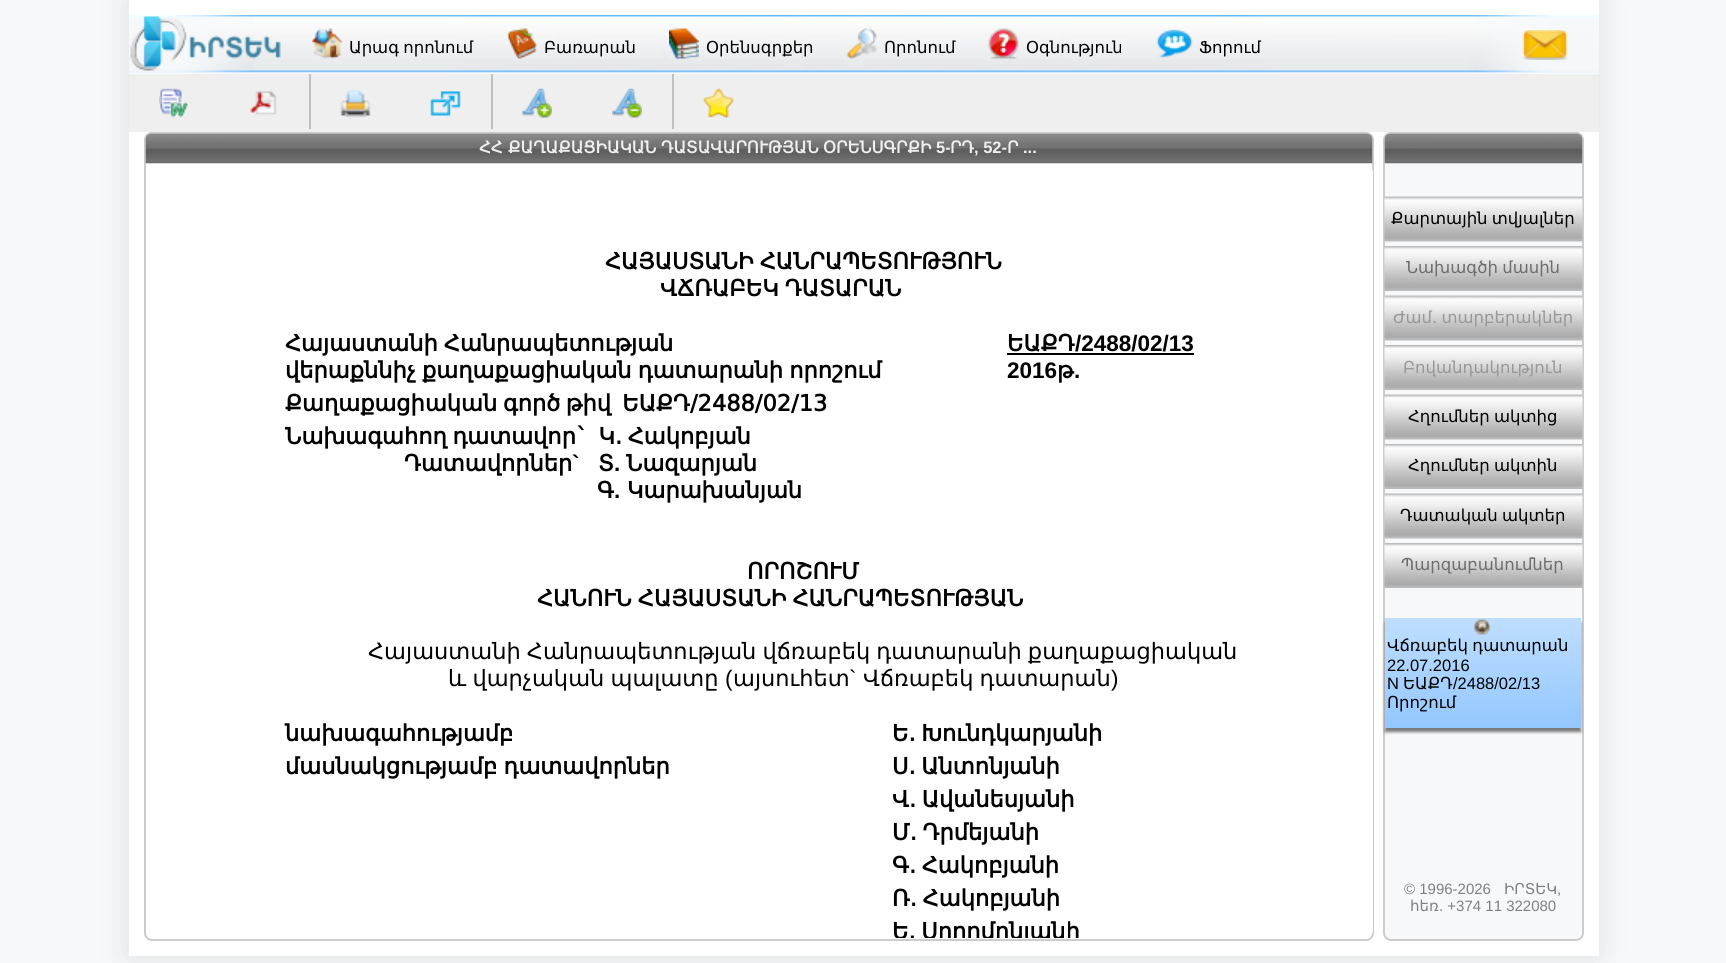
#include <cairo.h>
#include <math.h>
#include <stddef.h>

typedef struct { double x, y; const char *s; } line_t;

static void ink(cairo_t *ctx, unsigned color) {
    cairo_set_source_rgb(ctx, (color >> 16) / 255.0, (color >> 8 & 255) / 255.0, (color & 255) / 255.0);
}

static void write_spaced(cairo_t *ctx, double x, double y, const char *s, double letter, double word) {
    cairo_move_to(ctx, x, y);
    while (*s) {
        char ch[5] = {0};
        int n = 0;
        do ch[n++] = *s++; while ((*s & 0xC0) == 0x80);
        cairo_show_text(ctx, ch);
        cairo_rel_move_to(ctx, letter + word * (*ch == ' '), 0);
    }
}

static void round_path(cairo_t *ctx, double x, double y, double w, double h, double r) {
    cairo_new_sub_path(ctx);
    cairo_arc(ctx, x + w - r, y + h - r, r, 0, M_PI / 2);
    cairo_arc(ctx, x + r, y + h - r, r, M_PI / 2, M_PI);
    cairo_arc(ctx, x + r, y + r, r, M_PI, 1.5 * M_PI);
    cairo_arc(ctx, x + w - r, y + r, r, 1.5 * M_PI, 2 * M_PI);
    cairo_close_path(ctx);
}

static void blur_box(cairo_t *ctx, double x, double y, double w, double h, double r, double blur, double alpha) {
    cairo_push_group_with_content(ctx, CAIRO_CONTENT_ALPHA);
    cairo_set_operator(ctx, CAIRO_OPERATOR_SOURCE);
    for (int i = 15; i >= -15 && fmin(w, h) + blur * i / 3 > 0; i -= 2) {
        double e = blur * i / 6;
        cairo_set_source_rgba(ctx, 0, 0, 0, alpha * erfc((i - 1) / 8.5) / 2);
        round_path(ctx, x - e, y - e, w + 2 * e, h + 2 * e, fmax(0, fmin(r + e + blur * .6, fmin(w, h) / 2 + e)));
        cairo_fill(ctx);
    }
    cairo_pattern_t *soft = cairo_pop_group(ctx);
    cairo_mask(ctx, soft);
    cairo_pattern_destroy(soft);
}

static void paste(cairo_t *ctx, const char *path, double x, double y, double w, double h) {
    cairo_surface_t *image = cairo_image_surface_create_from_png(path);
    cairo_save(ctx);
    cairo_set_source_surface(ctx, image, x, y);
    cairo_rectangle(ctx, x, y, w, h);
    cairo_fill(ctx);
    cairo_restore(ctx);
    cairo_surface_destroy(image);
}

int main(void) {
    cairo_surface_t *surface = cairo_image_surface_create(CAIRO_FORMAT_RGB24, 1726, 963);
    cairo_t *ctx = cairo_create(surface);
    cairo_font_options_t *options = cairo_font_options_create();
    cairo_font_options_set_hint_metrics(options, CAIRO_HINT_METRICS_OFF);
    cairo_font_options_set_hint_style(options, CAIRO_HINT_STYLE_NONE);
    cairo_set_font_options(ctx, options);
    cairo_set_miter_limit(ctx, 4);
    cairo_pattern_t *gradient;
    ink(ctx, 0xF6F8FA);
    cairo_paint(ctx);
    ink(ctx, 0xAAAAAA);
    blur_box(ctx, 128, 0, 1470, 956, 0, 15, 0.32);
    ink(ctx, 0xFFFFFF);
    cairo_rectangle(ctx, 129, 0, 1470, 956);
    cairo_fill(ctx);
    paste(ctx, "media/1.png", 129, 15, 1470, 59);
    paste(ctx, "media/2.png", 130, 16, 151, 55);
    paste(ctx, "media/3.png", 312, 28, 30, 31);
    cairo_select_font_face(ctx, "DejaVu Sans", CAIRO_FONT_SLANT_NORMAL, CAIRO_FONT_WEIGHT_NORMAL);
    cairo_set_font_size(ctx, 16.5);
    ink(ctx, 0x000000);
    write_spaced(ctx, 349, 53, "Արագ որոնում", 0, -1);
    paste(ctx, "media/4.png", 507, 28, 30, 31);
    cairo_move_to(ctx, 544, 53);
    cairo_show_text(ctx, "Բառարան");
    paste(ctx, "media/5.png", 669, 28, 30, 31);
    cairo_move_to(ctx, 706, 53);
    cairo_show_text(ctx, "Օրենսգրքեր");
    paste(ctx, "media/6.png", 847, 28, 30, 31);
    cairo_move_to(ctx, 884, 53);
    cairo_show_text(ctx, "Որոնում");
    paste(ctx, "media/7.png", 988, 28, 31, 31);
    cairo_move_to(ctx, 1026, 53);
    cairo_show_text(ctx, "Օգնություն");
    paste(ctx, "media/8.png", 1156, 29, 37, 29);
    cairo_move_to(ctx, 1199, 53);
    cairo_show_text(ctx, "Ֆորում");
    paste(ctx, "media/9.png", 1522, 30, 46, 30);
    ink(ctx, 0xEFEFEF);
    cairo_rectangle(ctx, 129, 74, 1470, 58);
    cairo_fill(ctx);
    paste(ctx, "media/10.png", 159, 88, 30, 30);
    paste(ctx, "media/11.png", 250, 91, 27, 25);
    ink(ctx, 0xC0C0C0);
    cairo_rectangle(ctx, 309, 74, 2, 55);
    cairo_fill(ctx);
    paste(ctx, "media/12.png", 340, 90, 31, 28);
    paste(ctx, "media/13.png", 430, 91, 31, 25);
    cairo_rectangle(ctx, 491, 74, 2, 55);
    cairo_fill(ctx);
    paste(ctx, "media/14.png", 522, 88, 30, 31);
    paste(ctx, "media/15.png", 612, 88, 30, 31);
    cairo_rectangle(ctx, 672, 74, 2, 55);
    cairo_fill(ctx);
    paste(ctx, "media/16.png", 703, 88, 31, 30);
    round_path(ctx, 145, 133, 1228, 807, 7);
    ink(ctx, 0xCCCCCC);
    cairo_stroke(ctx);
    paste(ctx, "media/17.png", 145, 133, 1228, 31);
    cairo_select_font_face(ctx, "DejaVu Sans", CAIRO_FONT_SLANT_NORMAL, CAIRO_FONT_WEIGHT_BOLD);
    ink(ctx, 0xEFEFEF);
    {
        static const line_t items[] = {
            {479, 153, "ՀՀ"},
            {508, 153, "ՔԱՂԱՔԱՑԻԱԿԱՆ"},
            {661, 153, "ԴԱՏԱՎԱՐՈՒԹՅԱՆ"},
            {823, 153, "ՕՐԵՆՍԳՐՔԻ"},
        };
        for (size_t i = 0; i < sizeof items / sizeof *items; i++) {
            cairo_move_to(ctx, items[i].x, items[i].y);
            cairo_show_text(ctx, items[i].s);
        }
    }
    cairo_select_font_face(ctx, "Liberation Sans", CAIRO_FONT_SLANT_NORMAL, CAIRO_FONT_WEIGHT_BOLD);
    cairo_move_to(ctx, 936, 153);
    cairo_show_text(ctx, "5-");
    cairo_select_font_face(ctx, "DejaVu Sans", CAIRO_FONT_SLANT_NORMAL, CAIRO_FONT_WEIGHT_BOLD);
    cairo_move_to(ctx, 950, 153);
    cairo_show_text(ctx, "ՐԴ");
    cairo_select_font_face(ctx, "Liberation Sans", CAIRO_FONT_SLANT_NORMAL, CAIRO_FONT_WEIGHT_BOLD);
    cairo_move_to(ctx, 974, 153);
    cairo_show_text(ctx, ", 52-");
    cairo_select_font_face(ctx, "DejaVu Sans", CAIRO_FONT_SLANT_NORMAL, CAIRO_FONT_WEIGHT_BOLD);
    cairo_move_to(ctx, 1007, 153);
    cairo_show_text(ctx, "Ր");
    cairo_select_font_face(ctx, "Liberation Sans", CAIRO_FONT_SLANT_NORMAL, CAIRO_FONT_WEIGHT_BOLD);
    cairo_move_to(ctx, 1023, 153);
    cairo_show_text(ctx, "...");
    ink(ctx, 0xFFFFFF);
    round_path(ctx, 146, 164, 1227, 774, 8);
    cairo_fill(ctx);
    cairo_select_font_face(ctx, "DejaVu Sans", CAIRO_FONT_SLANT_NORMAL, CAIRO_FONT_WEIGHT_BOLD);
    cairo_set_font_size(ctx, 22.5);
    ink(ctx, 0x000000);
    {
        static const line_t items[] = {
            {605, 269, "ՀԱՅԱՍՏԱՆԻ ՀԱՆՐԱՊԵՏՈՒԹՅՈՒՆ"},
            {660, 296, "ՎՃՌԱԲԵԿ ԴԱՏԱՐԱՆ"},
            {285, 351, "Հայաստանի Հանրապետության"},
            {285, 378, "վերաքննիչ քաղաքացիական դատարանի որոշում"},
        };
        for (size_t i = 0; i < sizeof items / sizeof *items; i++) {
            write_spaced(ctx, items[i].x, items[i].y, items[i].s, 0, -1);
        }
    }
    cairo_move_to(ctx, 1007, 351);
    cairo_show_text(ctx, "ԵԱՔԴ");
    cairo_rectangle(ctx, 1007, 353, 187, 2);
    cairo_fill(ctx);
    cairo_select_font_face(ctx, "Liberation Sans", CAIRO_FONT_SLANT_NORMAL, CAIRO_FONT_WEIGHT_BOLD);
    cairo_move_to(ctx, 1075, 351);
    cairo_show_text(ctx, "/2488/02/13");
    cairo_move_to(ctx, 1007, 378);
    cairo_show_text(ctx, "2016");
    cairo_select_font_face(ctx, "DejaVu Sans", CAIRO_FONT_SLANT_NORMAL, CAIRO_FONT_WEIGHT_BOLD);
    cairo_move_to(ctx, 1057, 378);
    cairo_show_text(ctx, "թ");
    cairo_select_font_face(ctx, "Liberation Sans", CAIRO_FONT_SLANT_NORMAL, CAIRO_FONT_WEIGHT_BOLD);
    cairo_move_to(ctx, 1074, 378);
    cairo_show_text(ctx, ".");
    cairo_select_font_face(ctx, "DejaVu Sans", CAIRO_FONT_SLANT_NORMAL, CAIRO_FONT_WEIGHT_BOLD);
    write_spaced(ctx, 285, 411, "Քաղաքացիական գործ թիվ  ԵԱՔԴ/2488/02/13", 0, -1.5);
    write_spaced(ctx, 285, 444, "Նախագահող դատավոր`  Կ. Հակոբյան", 0, -1.5);
    cairo_move_to(ctx, 404, 471);
    cairo_show_text(ctx, "Դատավորներ");
    cairo_select_font_face(ctx, "Liberation Sans", CAIRO_FONT_SLANT_NORMAL, CAIRO_FONT_WEIGHT_BOLD);
    cairo_move_to(ctx, 572, 471);
    cairo_show_text(ctx, "`");
    cairo_select_font_face(ctx, "DejaVu Sans", CAIRO_FONT_SLANT_NORMAL, CAIRO_FONT_WEIGHT_BOLD);
    cairo_move_to(ctx, 598, 471);
    cairo_show_text(ctx, "Տ");
    cairo_select_font_face(ctx, "Liberation Sans", CAIRO_FONT_SLANT_NORMAL, CAIRO_FONT_WEIGHT_BOLD);
    cairo_move_to(ctx, 614, 471);
    cairo_show_text(ctx, ".");
    cairo_select_font_face(ctx, "DejaVu Sans", CAIRO_FONT_SLANT_NORMAL, CAIRO_FONT_WEIGHT_BOLD);
    cairo_move_to(ctx, 626, 471);
    cairo_show_text(ctx, "Նազարյան");
    cairo_move_to(ctx, 597, 498);
    cairo_show_text(ctx, "Գ");
    cairo_select_font_face(ctx, "Liberation Sans", CAIRO_FONT_SLANT_NORMAL, CAIRO_FONT_WEIGHT_BOLD);
    cairo_move_to(ctx, 614, 498);
    cairo_show_text(ctx, ".");
    cairo_select_font_face(ctx, "DejaVu Sans", CAIRO_FONT_SLANT_NORMAL, CAIRO_FONT_WEIGHT_BOLD);
    cairo_move_to(ctx, 627, 498);
    cairo_show_text(ctx, "Կարախանյան");
    cairo_move_to(ctx, 747, 579);
    cairo_show_text(ctx, "ՈՐՈՇՈՒՄ");
    write_spaced(ctx, 537, 606, "ՀԱՆՈՒՆ ՀԱՅԱՍՏԱՆԻ ՀԱՆՐԱՊԵՏՈՒԹՅԱՆ", 0, -1);
    cairo_select_font_face(ctx, "DejaVu Sans", CAIRO_FONT_SLANT_NORMAL, CAIRO_FONT_WEIGHT_NORMAL);
    write_spaced(ctx, 368, 659, "Հայաստանի Հանրապետության վճռաբեկ դատարանի քաղաքացիական", 0, -1);
    write_spaced(ctx, 448, 686, "և վարչական պալատը", 0, -1);
    cairo_select_font_face(ctx, "Liberation Sans", CAIRO_FONT_SLANT_NORMAL, CAIRO_FONT_WEIGHT_NORMAL);
    cairo_move_to(ctx, 725, 686);
    cairo_show_text(ctx, "(");
    cairo_select_font_face(ctx, "DejaVu Sans", CAIRO_FONT_SLANT_NORMAL, CAIRO_FONT_WEIGHT_NORMAL);
    cairo_move_to(ctx, 733, 686);
    cairo_show_text(ctx, "այսուհետ");
    cairo_select_font_face(ctx, "Liberation Sans", CAIRO_FONT_SLANT_NORMAL, CAIRO_FONT_WEIGHT_NORMAL);
    cairo_move_to(ctx, 849, 686);
    cairo_show_text(ctx, "`");
    cairo_select_font_face(ctx, "DejaVu Sans", CAIRO_FONT_SLANT_NORMAL, CAIRO_FONT_WEIGHT_NORMAL);
    write_spaced(ctx, 863, 686, "Վճռաբեկ դատարան", 0, -1);
    cairo_select_font_face(ctx, "Liberation Sans", CAIRO_FONT_SLANT_NORMAL, CAIRO_FONT_WEIGHT_NORMAL);
    cairo_move_to(ctx, 1111, 686);
    cairo_show_text(ctx, ")");
    cairo_select_font_face(ctx, "DejaVu Sans", CAIRO_FONT_SLANT_NORMAL, CAIRO_FONT_WEIGHT_BOLD);
    cairo_move_to(ctx, 285, 741);
    cairo_show_text(ctx, "նախագահությամբ");
    write_spaced(ctx, 892, 741, "Ե. Խունդկարյանի", 0, -1.5);
    write_spaced(ctx, 285, 774, "մասնակցությամբ դատավորներ", 0, -1);
    {
        static const line_t items[] = {
            {892, 774, "Ս. Անտոնյանի"},
            {892, 807, "Վ. Ավանեսյանի"},
            {892, 840, "Մ. Դրմեյանի"},
            {892, 873, "Գ. Հակոբյանի"},
            {892, 906, "Ռ. Հակոբյանի"},
        };
        for (size_t i = 0; i < sizeof items / sizeof *items; i++) {
            write_spaced(ctx, items[i].x, items[i].y, items[i].s, 0, -1.5);
        }
    }
    cairo_save(ctx);
    round_path(ctx, 146, 164, 1227, 774, 8);
    cairo_clip(ctx);
    write_spaced(ctx, 892, 939, "Ե. Սողոմոնյանի", 0, -1.5);
    cairo_restore(ctx);
    ink(ctx, 0xF6F8FA);
    round_path(ctx, 1384, 133, 199, 807, 7);
    cairo_fill_preserve(ctx);
    ink(ctx, 0xCCCCCC);
    cairo_stroke(ctx);
    paste(ctx, "media/18.png", 1384, 133, 199, 31);
    paste(ctx, "media/19.png", 1384, 196, 199, 46);
    cairo_select_font_face(ctx, "DejaVu Sans", CAIRO_FONT_SLANT_NORMAL, CAIRO_FONT_WEIGHT_NORMAL);
    cairo_set_font_size(ctx, 16.5);
    ink(ctx, 0x000000);
    write_spaced(ctx, 1391, 224, "Քարտային տվյալներ", 0, -1);
    paste(ctx, "media/20.png", 1384, 246, 199, 45);
    ink(ctx, 0x6D6D6D);
    write_spaced(ctx, 1406, 273, "Նախագծի մասին", 0, -1);
    paste(ctx, "media/21.png", 1384, 295, 199, 46);
    ink(ctx, 0x989898);
    write_spaced(ctx, 1393, 323, "Ժամ. տարբերակներ", 0, -1);
    paste(ctx, "media/22.png", 1384, 345, 199, 45);
    cairo_move_to(ctx, 1403, 373);
    cairo_show_text(ctx, "Բովանդակություն");
    paste(ctx, "media/23.png", 1384, 394, 199, 46);
    ink(ctx, 0x000000);
    write_spaced(ctx, 1408, 422, "Հղումներ ակտից", 0, -1);
    paste(ctx, "media/24.png", 1384, 444, 199, 45);
    write_spaced(ctx, 1408, 471, "Հղումներ ակտին", 0, -1);
    paste(ctx, "media/25.png", 1384, 493, 199, 46);
    write_spaced(ctx, 1400, 521, "Դատական ակտեր", 0, -1);
    paste(ctx, "media/26.png", 1384, 543, 199, 45);
    ink(ctx, 0x6D6D6D);
    cairo_move_to(ctx, 1401, 570);
    cairo_show_text(ctx, "Պարզաբանումներ");
    ink(ctx, 0x777777);
    blur_box(ctx, 1385, 623, 196, 109, 0, 1.5, 1);
    gradient = cairo_pattern_create_linear(1483, 618, 1483, 728);
    cairo_pattern_add_color_stop_rgba(gradient, 0, 0.749, 0.871, 1, 1);
    cairo_pattern_add_color_stop_rgba(gradient, 1, 0.576, 0.78, 1, 1);
    cairo_set_source(ctx, gradient);
    cairo_pattern_destroy(gradient);
    cairo_rectangle(ctx, 1385, 618, 196, 110);
    cairo_fill(ctx);
    paste(ctx, "media/27.png", 1474, 619, 16, 16);
    ink(ctx, 0x000000);
    write_spaced(ctx, 1387, 651, "Վճռաբեկ դատարան", 0, -1);
    cairo_select_font_face(ctx, "Liberation Sans", CAIRO_FONT_SLANT_NORMAL, CAIRO_FONT_WEIGHT_NORMAL);
    cairo_move_to(ctx, 1387, 671);
    cairo_show_text(ctx, "22.07.2016");
    cairo_move_to(ctx, 1387, 689);
    cairo_show_text(ctx, "N");
    cairo_select_font_face(ctx, "DejaVu Sans", CAIRO_FONT_SLANT_NORMAL, CAIRO_FONT_WEIGHT_NORMAL);
    cairo_move_to(ctx, 1403, 689);
    cairo_show_text(ctx, "ԵԱՔԴ");
    cairo_select_font_face(ctx, "Liberation Sans", CAIRO_FONT_SLANT_NORMAL, CAIRO_FONT_WEIGHT_NORMAL);
    cairo_move_to(ctx, 1453, 689);
    cairo_show_text(ctx, "/2488/02/13");
    cairo_select_font_face(ctx, "DejaVu Sans", CAIRO_FONT_SLANT_NORMAL, CAIRO_FONT_WEIGHT_NORMAL);
    cairo_move_to(ctx, 1387, 708);
    cairo_show_text(ctx, "Որոշում");
    cairo_select_font_face(ctx, "Liberation Sans", CAIRO_FONT_SLANT_NORMAL, CAIRO_FONT_WEIGHT_NORMAL);
    cairo_set_font_size(ctx, 15);
    ink(ctx, 0x808080);
    cairo_move_to(ctx, 1404, 894);
    cairo_show_text(ctx, "© 1996-2026");
    cairo_select_font_face(ctx, "DejaVu Sans", CAIRO_FONT_SLANT_NORMAL, CAIRO_FONT_WEIGHT_NORMAL);
    cairo_move_to(ctx, 1504, 894);
    cairo_show_text(ctx, "ԻՐՏԵԿ");
    cairo_select_font_face(ctx, "Liberation Sans", CAIRO_FONT_SLANT_NORMAL, CAIRO_FONT_WEIGHT_NORMAL);
    cairo_move_to(ctx, 1557, 894);
    cairo_show_text(ctx, ",");
    cairo_select_font_face(ctx, "DejaVu Sans", CAIRO_FONT_SLANT_NORMAL, CAIRO_FONT_WEIGHT_NORMAL);
    cairo_move_to(ctx, 1410, 911);
    cairo_show_text(ctx, "հեռ");
    cairo_select_font_face(ctx, "Liberation Sans", CAIRO_FONT_SLANT_NORMAL, CAIRO_FONT_WEIGHT_NORMAL);
    cairo_move_to(ctx, 1439, 911);
    cairo_show_text(ctx, ". +374 11 322080");
    cairo_surface_write_to_png(surface, "image.png");
    cairo_font_options_destroy(options);
    cairo_destroy(ctx);
    cairo_surface_destroy(surface);
    return 0;
}
